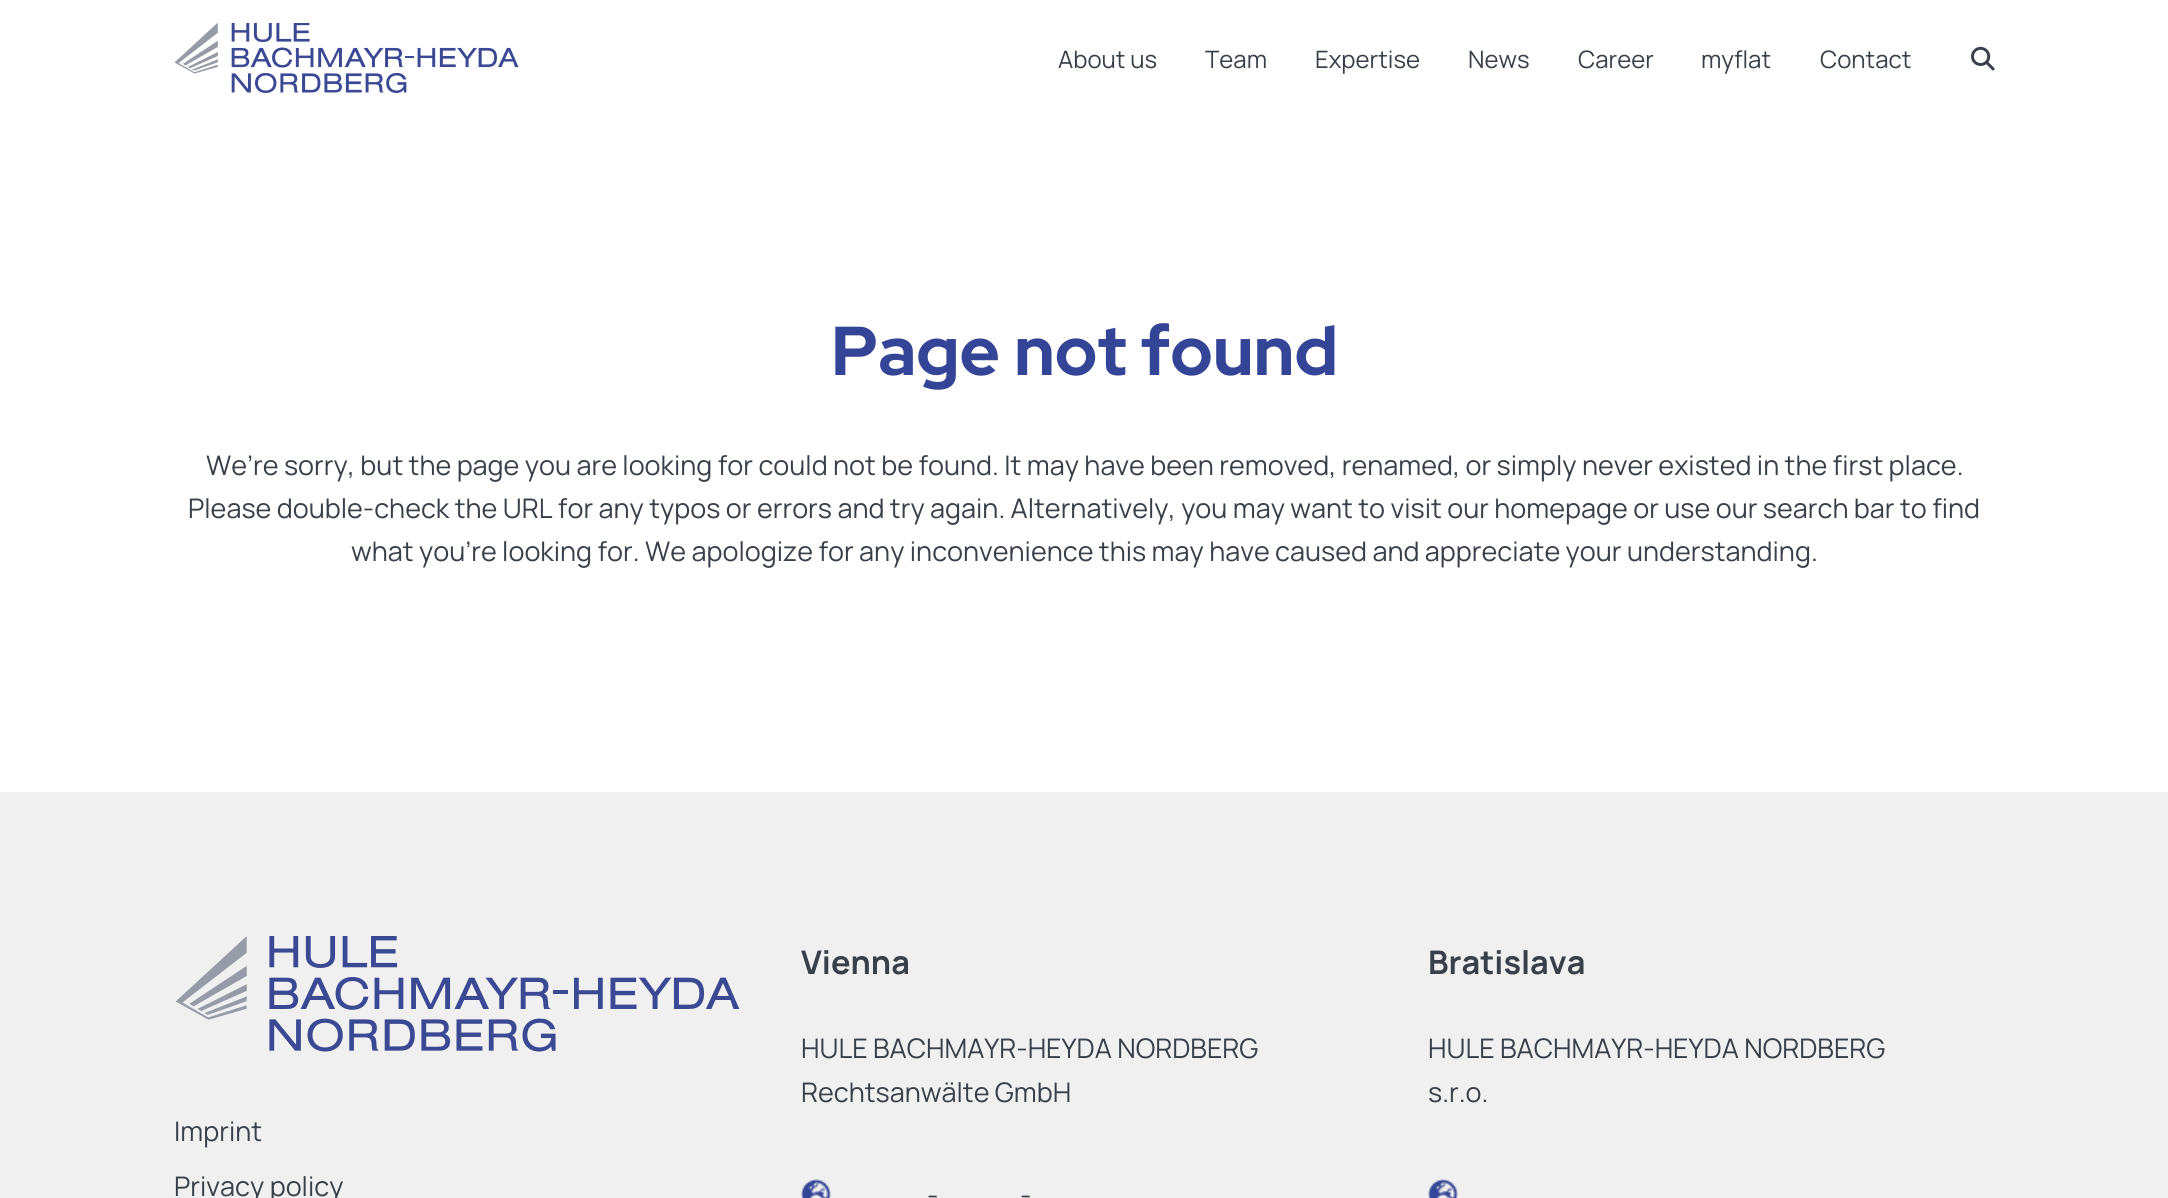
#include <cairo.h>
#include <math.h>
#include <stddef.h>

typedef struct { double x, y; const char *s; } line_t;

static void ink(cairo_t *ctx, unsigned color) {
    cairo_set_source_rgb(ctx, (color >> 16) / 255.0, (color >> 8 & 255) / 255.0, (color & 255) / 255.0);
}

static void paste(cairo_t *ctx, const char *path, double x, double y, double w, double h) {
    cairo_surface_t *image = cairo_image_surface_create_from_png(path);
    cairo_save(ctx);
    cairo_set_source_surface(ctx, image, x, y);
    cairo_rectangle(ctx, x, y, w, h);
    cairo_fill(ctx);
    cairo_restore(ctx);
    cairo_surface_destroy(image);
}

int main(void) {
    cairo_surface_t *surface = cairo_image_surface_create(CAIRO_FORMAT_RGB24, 2168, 1198);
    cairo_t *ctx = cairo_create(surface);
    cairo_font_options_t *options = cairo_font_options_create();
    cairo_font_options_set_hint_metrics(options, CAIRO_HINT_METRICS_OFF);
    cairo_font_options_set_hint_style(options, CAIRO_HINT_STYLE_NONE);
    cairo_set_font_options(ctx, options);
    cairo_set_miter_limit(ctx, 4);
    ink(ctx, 0xFFFFFF);
    cairo_paint(ctx);
    paste(ctx, "media/1.png", 174, 23, 345, 70);
    cairo_select_font_face(ctx, "Manrope", CAIRO_FONT_SLANT_NORMAL, CAIRO_FONT_WEIGHT_NORMAL);
    cairo_set_font_size(ctx, 24);
    ink(ctx, 0x394049);
    {
        static const line_t items[] = {
            {1058, 68, "About us"},
            {1205, 68, "Team"},
            {1315, 68, "Expertise"},
            {1468, 68, "News"},
            {1578, 68, "Career"},
            {1701, 68, "myflat"},
            {1820, 68, "Contact"},
        };
        for (size_t i = 0; i < sizeof items / sizeof *items; i++) {
            cairo_move_to(ctx, items[i].x, items[i].y);
            cairo_show_text(ctx, items[i].s);
        }
    }
    paste(ctx, "media/2.png", 1971, 46, 24, 25);
    cairo_select_font_face(ctx, "Red Hat Display ExtraBold", CAIRO_FONT_SLANT_NORMAL, CAIRO_FONT_WEIGHT_NORMAL);
    cairo_set_font_size(ctx, 69);
    ink(ctx, 0x344496);
    cairo_move_to(ctx, 831, 375);
    cairo_show_text(ctx, "Page not found");
    cairo_select_font_face(ctx, "Manrope", CAIRO_FONT_SLANT_NORMAL, CAIRO_FONT_WEIGHT_NORMAL);
    cairo_set_font_size(ctx, 27);
    ink(ctx, 0x394049);
    {
        static const line_t items[] = {
            {206, 475, "We’re sorry, but the page you are looking for could not be found. It may have been removed, renamed, or simply never existed in the first place."},
            {188, 518, "Please double-check the URL for any typos or errors and try again. Alternatively, you may want to visit our homepage or use our search bar to find"},
            {351, 561, "what you’re looking for. We apologize for any inconvenience this may have caused and appreciate your understanding."},
        };
        for (size_t i = 0; i < sizeof items / sizeof *items; i++) {
            cairo_move_to(ctx, items[i].x, items[i].y);
            cairo_show_text(ctx, items[i].s);
        }
    }
    ink(ctx, 0xF0F0F0);
    cairo_rectangle(ctx, 0, 792, 2168, 406);
    cairo_fill(ctx);
    cairo_select_font_face(ctx, "Manrope", CAIRO_FONT_SLANT_NORMAL, CAIRO_FONT_WEIGHT_BOLD);
    cairo_set_font_size(ctx, 32.5);
    ink(ctx, 0x394049);
    cairo_move_to(ctx, 801, 974);
    cairo_show_text(ctx, "Vienna");
    cairo_select_font_face(ctx, "Manrope", CAIRO_FONT_SLANT_NORMAL, CAIRO_FONT_WEIGHT_NORMAL);
    cairo_set_font_size(ctx, 27);
    cairo_move_to(ctx, 801, 1058);
    cairo_show_text(ctx, "HULE BACHMAYR-HEYDA NORDBERG");
    cairo_move_to(ctx, 801, 1102);
    cairo_show_text(ctx, "Rechtsanwälte GmbH");
    paste(ctx, "media/3.png", 801, 1179, 30, 19);
    cairo_move_to(ctx, 927, 1205);
    cairo_show_text(ctx, "-");
    cairo_move_to(ctx, 1020, 1205);
    cairo_show_text(ctx, "-");
    cairo_select_font_face(ctx, "Manrope", CAIRO_FONT_SLANT_NORMAL, CAIRO_FONT_WEIGHT_BOLD);
    cairo_set_font_size(ctx, 32.5);
    cairo_move_to(ctx, 1428, 974);
    cairo_show_text(ctx, "Bratislava");
    cairo_select_font_face(ctx, "Manrope", CAIRO_FONT_SLANT_NORMAL, CAIRO_FONT_WEIGHT_NORMAL);
    cairo_set_font_size(ctx, 27);
    cairo_move_to(ctx, 1428, 1058);
    cairo_show_text(ctx, "HULE BACHMAYR-HEYDA NORDBERG");
    cairo_move_to(ctx, 1428, 1102);
    cairo_show_text(ctx, "s.r.o.");
    paste(ctx, "media/3.png", 1428, 1179, 30, 19);
    paste(ctx, "media/4.png", 175, 936, 565, 116);
    cairo_move_to(ctx, 174, 1141);
    cairo_show_text(ctx, "Imprint");
    cairo_move_to(ctx, 174, 1196);
    cairo_show_text(ctx, "Privacy policy");
    cairo_surface_write_to_png(surface, "image.png");
    cairo_font_options_destroy(options);
    cairo_destroy(ctx);
    cairo_surface_destroy(surface);
    return 0;
}
